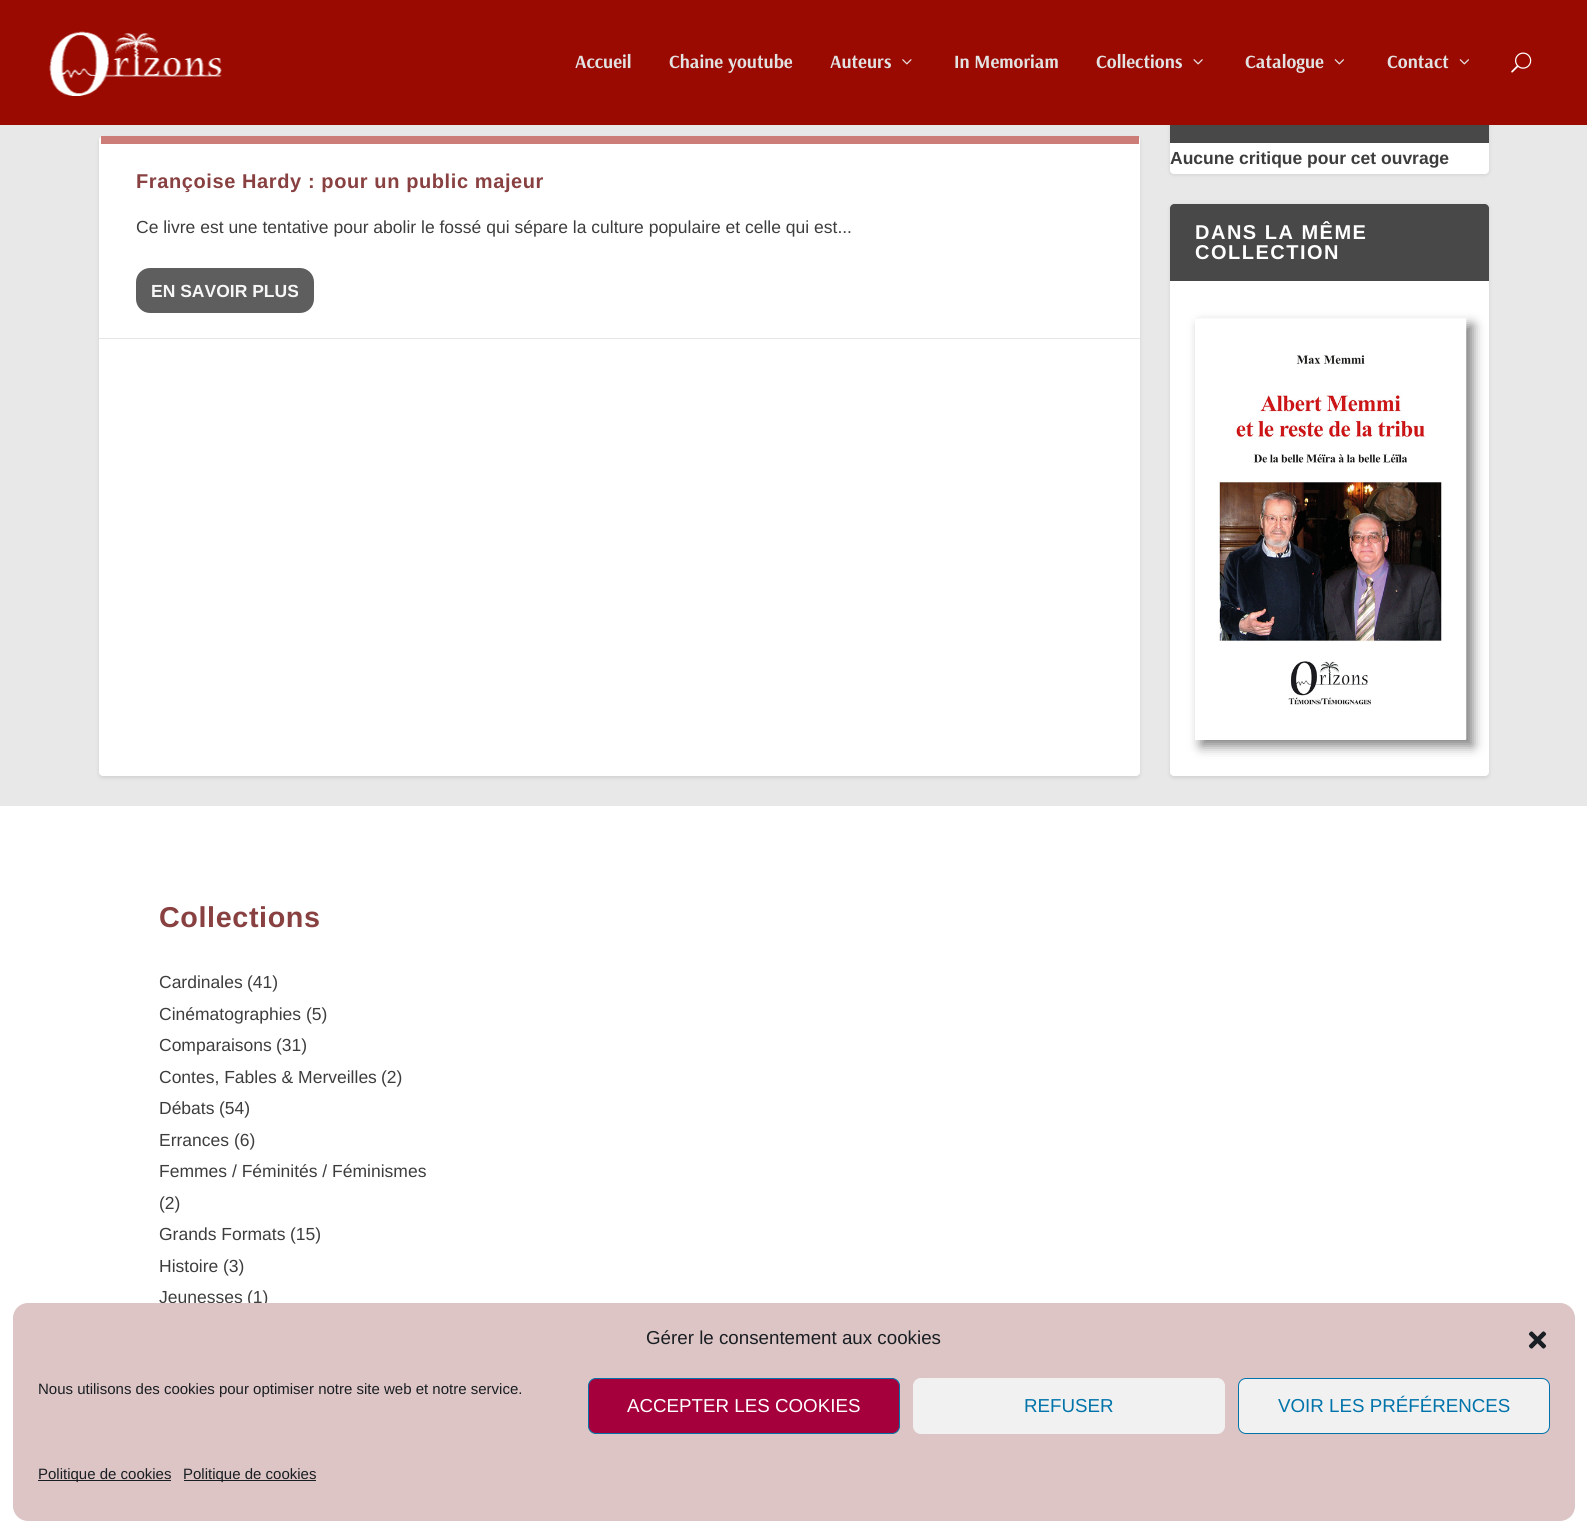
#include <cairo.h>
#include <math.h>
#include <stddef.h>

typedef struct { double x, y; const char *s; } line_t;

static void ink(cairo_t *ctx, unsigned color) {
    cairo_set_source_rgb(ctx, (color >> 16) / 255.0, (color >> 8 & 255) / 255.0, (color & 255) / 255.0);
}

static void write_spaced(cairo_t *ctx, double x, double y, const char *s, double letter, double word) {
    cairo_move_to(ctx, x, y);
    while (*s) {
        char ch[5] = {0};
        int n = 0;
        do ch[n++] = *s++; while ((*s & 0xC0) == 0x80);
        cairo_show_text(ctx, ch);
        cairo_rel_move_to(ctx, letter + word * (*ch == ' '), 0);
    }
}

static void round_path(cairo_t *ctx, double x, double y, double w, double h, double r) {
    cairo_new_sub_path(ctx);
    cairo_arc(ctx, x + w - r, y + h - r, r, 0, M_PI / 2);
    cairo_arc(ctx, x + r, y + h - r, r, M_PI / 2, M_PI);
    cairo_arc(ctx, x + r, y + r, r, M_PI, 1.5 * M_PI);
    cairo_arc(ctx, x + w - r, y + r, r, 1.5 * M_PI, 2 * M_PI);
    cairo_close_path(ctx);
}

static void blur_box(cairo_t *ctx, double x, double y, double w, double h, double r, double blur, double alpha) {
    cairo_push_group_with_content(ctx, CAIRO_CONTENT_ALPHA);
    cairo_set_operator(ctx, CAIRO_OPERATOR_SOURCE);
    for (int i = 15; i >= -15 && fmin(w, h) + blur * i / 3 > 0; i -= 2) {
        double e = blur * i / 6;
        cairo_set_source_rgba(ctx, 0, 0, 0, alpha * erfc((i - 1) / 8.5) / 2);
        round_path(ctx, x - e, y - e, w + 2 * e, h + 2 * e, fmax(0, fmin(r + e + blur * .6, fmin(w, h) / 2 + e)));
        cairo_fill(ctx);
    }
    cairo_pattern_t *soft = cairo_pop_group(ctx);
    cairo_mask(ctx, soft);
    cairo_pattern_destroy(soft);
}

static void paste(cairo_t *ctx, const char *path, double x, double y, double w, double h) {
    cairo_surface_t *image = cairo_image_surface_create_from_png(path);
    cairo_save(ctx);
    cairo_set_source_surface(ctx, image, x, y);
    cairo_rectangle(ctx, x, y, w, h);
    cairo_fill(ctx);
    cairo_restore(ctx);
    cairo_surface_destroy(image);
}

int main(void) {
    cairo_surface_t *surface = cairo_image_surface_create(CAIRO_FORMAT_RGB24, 1587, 1533);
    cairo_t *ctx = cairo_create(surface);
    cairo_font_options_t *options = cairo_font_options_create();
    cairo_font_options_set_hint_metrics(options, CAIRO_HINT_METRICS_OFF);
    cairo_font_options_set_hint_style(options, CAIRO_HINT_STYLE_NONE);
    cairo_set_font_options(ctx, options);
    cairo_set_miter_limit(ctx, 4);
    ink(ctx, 0xE8E8E8);
    cairo_paint(ctx);
    ink(ctx, 0x000000);
    blur_box(ctx, 1170, 86, 319, 89, 4, 2, 0.1);
    ink(ctx, 0xFFFFFF);
    round_path(ctx, 1170, 85, 319, 89, 4);
    cairo_fill(ctx);
    ink(ctx, 0x9B0A00);
    cairo_rectangle(ctx, 0, 0, 1587, 125);
    cairo_fill(ctx);
    paste(ctx, "media/1.png", 49, 31, 173, 65);
    cairo_select_font_face(ctx, "Arsenal", CAIRO_FONT_SLANT_NORMAL, CAIRO_FONT_WEIGHT_BOLD);
    cairo_set_font_size(ctx, 18.75);
    ink(ctx, 0xE2E2E2);
    {
        static const line_t items[] = {
            {575, 68, "Accueil"},
            {669, 68, "Chaine youtube"},
            {830, 68, "Auteurs"},
        };
        for (size_t i = 0; i < sizeof items / sizeof *items; i++) {
            cairo_move_to(ctx, items[i].x, items[i].y);
            cairo_show_text(ctx, items[i].s);
        }
    }
    paste(ctx, "media/2.png", 902, 59, 10, 6);
    cairo_move_to(ctx, 954, 68);
    cairo_show_text(ctx, "In Memoriam");
    cairo_move_to(ctx, 1096, 68);
    cairo_show_text(ctx, "Collections");
    paste(ctx, "media/3.png", 1193, 59, 10, 6);
    cairo_move_to(ctx, 1245, 68);
    cairo_show_text(ctx, "Catalogue");
    paste(ctx, "media/4.png", 1334, 59, 10, 6);
    cairo_move_to(ctx, 1387, 68);
    cairo_show_text(ctx, "Contact");
    paste(ctx, "media/4.png", 1459, 59, 10, 6);
    paste(ctx, "media/5.png", 1511, 52, 21, 21);
    ink(ctx, 0x000000);
    blur_box(ctx, 99, 138, 1041, 640, 4, 2, 0.1);
    ink(ctx, 0xFFFFFF);
    round_path(ctx, 99, 136, 1041, 640, 4);
    cairo_fill(ctx);
    ink(ctx, 0xCD7D78);
    cairo_rectangle(ctx, 101, 136, 1038, 8);
    cairo_fill(ctx);
    ink(ctx, 0xE6E6E6);
    cairo_rectangle(ctx, 99, 338, 1041, 1);
    cairo_fill(ctx);
    cairo_select_font_face(ctx, "Liberation Sans", CAIRO_FONT_SLANT_NORMAL, CAIRO_FONT_WEIGHT_BOLD);
    cairo_set_font_size(ctx, 20);
    ink(ctx, 0x884040);
    write_spaced(ctx, 136, 188, "Françoise Hardy : pour un public majeur", 0.6, 0);
    cairo_select_font_face(ctx, "Liberation Sans", CAIRO_FONT_SLANT_NORMAL, CAIRO_FONT_WEIGHT_NORMAL);
    cairo_set_font_size(ctx, 17.5);
    ink(ctx, 0x3D3D3D);
    cairo_move_to(ctx, 136, 233);
    cairo_show_text(ctx, "Ce livre est une tentative pour abolir le fossé qui sépare la culture populaire et celle qui est...");
    ink(ctx, 0x5E5E5E);
    round_path(ctx, 136, 268, 178, 45, 14);
    cairo_fill(ctx);
    cairo_select_font_face(ctx, "Liberation Sans", CAIRO_FONT_SLANT_NORMAL, CAIRO_FONT_WEIGHT_BOLD);
    ink(ctx, 0xF7F7F7);
    cairo_move_to(ctx, 151, 297);
    cairo_show_text(ctx, "EN SAVOIR PLUS");
    ink(ctx, 0x484848);
    cairo_rectangle(ctx, 1170, 125, 319, 18);
    cairo_fill(ctx);
    ink(ctx, 0x3D3D3D);
    cairo_move_to(ctx, 1170, 164);
    cairo_show_text(ctx, "Aucune critique pour cet ouvrage");
    ink(ctx, 0x000000);
    blur_box(ctx, 1170, 205, 319, 573, 4, 2, 0.1);
    ink(ctx, 0xFFFFFF);
    round_path(ctx, 1170, 204, 319, 572, 4);
    cairo_fill(ctx);
    ink(ctx, 0x484848);
    cairo_new_path(ctx);
    cairo_move_to(ctx, 1174, 204);
    cairo_line_to(ctx, 1485, 204);
    cairo_curve_to(ctx, 1487, 204, 1489, 206, 1489, 208);
    cairo_line_to(ctx, 1489, 281);
    cairo_line_to(ctx, 1170, 281);
    cairo_line_to(ctx, 1170, 208);
    cairo_curve_to(ctx, 1170, 206, 1172, 204, 1174, 204);
    cairo_close_path(ctx);
    cairo_fill(ctx);
    cairo_set_font_size(ctx, 20);
    ink(ctx, 0xFFFFFF);
    write_spaced(ctx, 1195, 239, "DANS LA MÊME", 1.5, 0);
    write_spaced(ctx, 1195, 259, "COLLECTION", 1.5, 0);
    cairo_save(ctx);
    cairo_set_fill_rule(ctx, CAIRO_FILL_RULE_EVEN_ODD);
    cairo_new_path(ctx);
    cairo_move_to(ctx, 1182, 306);
    cairo_line_to(ctx, 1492, 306);
    cairo_line_to(ctx, 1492, 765);
    cairo_line_to(ctx, 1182, 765);
    cairo_close_path(ctx);
    cairo_move_to(ctx, 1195, 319);
    cairo_line_to(ctx, 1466, 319);
    cairo_line_to(ctx, 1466, 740);
    cairo_line_to(ctx, 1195, 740);
    cairo_close_path(ctx);
    cairo_clip(ctx);
    ink(ctx, 0x000000);
    blur_box(ctx, 1201, 325, 272, 421, 0, 6, 0.5);
    cairo_restore(ctx);
    paste(ctx, "media/6.png", 1199, 318, 268, 422);
    cairo_rectangle(ctx, 0, 806, 1587, 727);
    cairo_fill(ctx);
    cairo_set_font_size(ctx, 28.75);
    ink(ctx, 0x884040);
    write_spaced(ctx, 159, 927, "Collections", 0.6, 0);
    cairo_select_font_face(ctx, "Liberation Sans", CAIRO_FONT_SLANT_NORMAL, CAIRO_FONT_WEIGHT_NORMAL);
    cairo_set_font_size(ctx, 17.5);
    ink(ctx, 0x3D3D3D);
    {
        static const line_t items[] = {
            {159, 988, "Cardinales"},
            {247, 988, "(41)"},
            {159, 1020, "Cinématographies"},
            {306, 1020, "(5)"},
            {159, 1051, "Comparaisons"},
            {276, 1051, "(31)"},
            {159, 1083, "Contes, Fables & Merveilles"},
            {381, 1083, "(2)"},
            {159, 1114, "Débats"},
            {219, 1114, "(54)"},
            {159, 1146, "Errances"},
            {234, 1146, "(6)"},
            {159, 1177, "Femmes / Féminités / Féminismes"},
            {159, 1209, "(2)"},
            {159, 1240, "Grands Formats"},
            {290, 1240, "(15)"},
            {159, 1272, "Histoire"},
            {223, 1272, "(3)"},
            {159, 1303, "Jeunesses"},
            {247, 1303, "(1)"},
        };
        for (size_t i = 0; i < sizeof items / sizeof *items; i++) {
            cairo_move_to(ctx, items[i].x, items[i].y);
            cairo_show_text(ctx, items[i].s);
        }
    }
    ink(ctx, 0xDDC5C5);
    round_path(ctx, 13, 1303, 1562, 218, 15);
    cairo_fill(ctx);
    cairo_set_font_size(ctx, 18.75);
    ink(ctx, 0x191E23);
    cairo_move_to(ctx, 646, 1344);
    cairo_show_text(ctx, "Gérer le consentement aux cookies");
    paste(ctx, "media/7.png", 1528, 1331, 19, 18);
    cairo_set_font_size(ctx, 15);
    cairo_move_to(ctx, 38, 1394);
    cairo_show_text(ctx, "Nous utilisons des cookies pour optimiser notre site web et notre service.");
    ink(ctx, 0xA5003C);
    round_path(ctx, 588.5, 1378.5, 311, 55, 7.5);
    cairo_fill_preserve(ctx);
    ink(ctx, 0x0073AA);
    cairo_set_line_width(ctx, 1);
    cairo_stroke(ctx);
    cairo_set_font_size(ctx, 18.75);
    ink(ctx, 0xFFFFFF);
    cairo_move_to(ctx, 627, 1412);
    cairo_show_text(ctx, "ACCEPTER LES COOKIES");
    ink(ctx, 0xF1F1F1);
    round_path(ctx, 913.5, 1378.5, 311, 55, 7.5);
    cairo_fill_preserve(ctx);
    cairo_stroke(ctx);
    ink(ctx, 0x0073AA);
    cairo_move_to(ctx, 1024, 1412);
    cairo_show_text(ctx, "REFUSER");
    ink(ctx, 0xF1F1F1);
    round_path(ctx, 1238.5, 1378.5, 311, 55, 7.5);
    cairo_fill_preserve(ctx);
    ink(ctx, 0x0073AA);
    cairo_stroke(ctx);
    cairo_move_to(ctx, 1278, 1412);
    cairo_show_text(ctx, "VOIR LES PRÉFÉRENCES");
    ink(ctx, 0x191E23);
    cairo_rectangle(ctx, 38, 1480, 133, 1);
    cairo_fill(ctx);
    cairo_set_font_size(ctx, 15);
    cairo_move_to(ctx, 38, 1479);
    cairo_show_text(ctx, "Politique de cookies");
    cairo_rectangle(ctx, 184, 1480, 132, 1);
    cairo_fill(ctx);
    cairo_move_to(ctx, 183, 1479);
    cairo_show_text(ctx, "Politique de cookies");
    cairo_surface_write_to_png(surface, "image.png");
    cairo_font_options_destroy(options);
    cairo_destroy(ctx);
    cairo_surface_destroy(surface);
    return 0;
}
